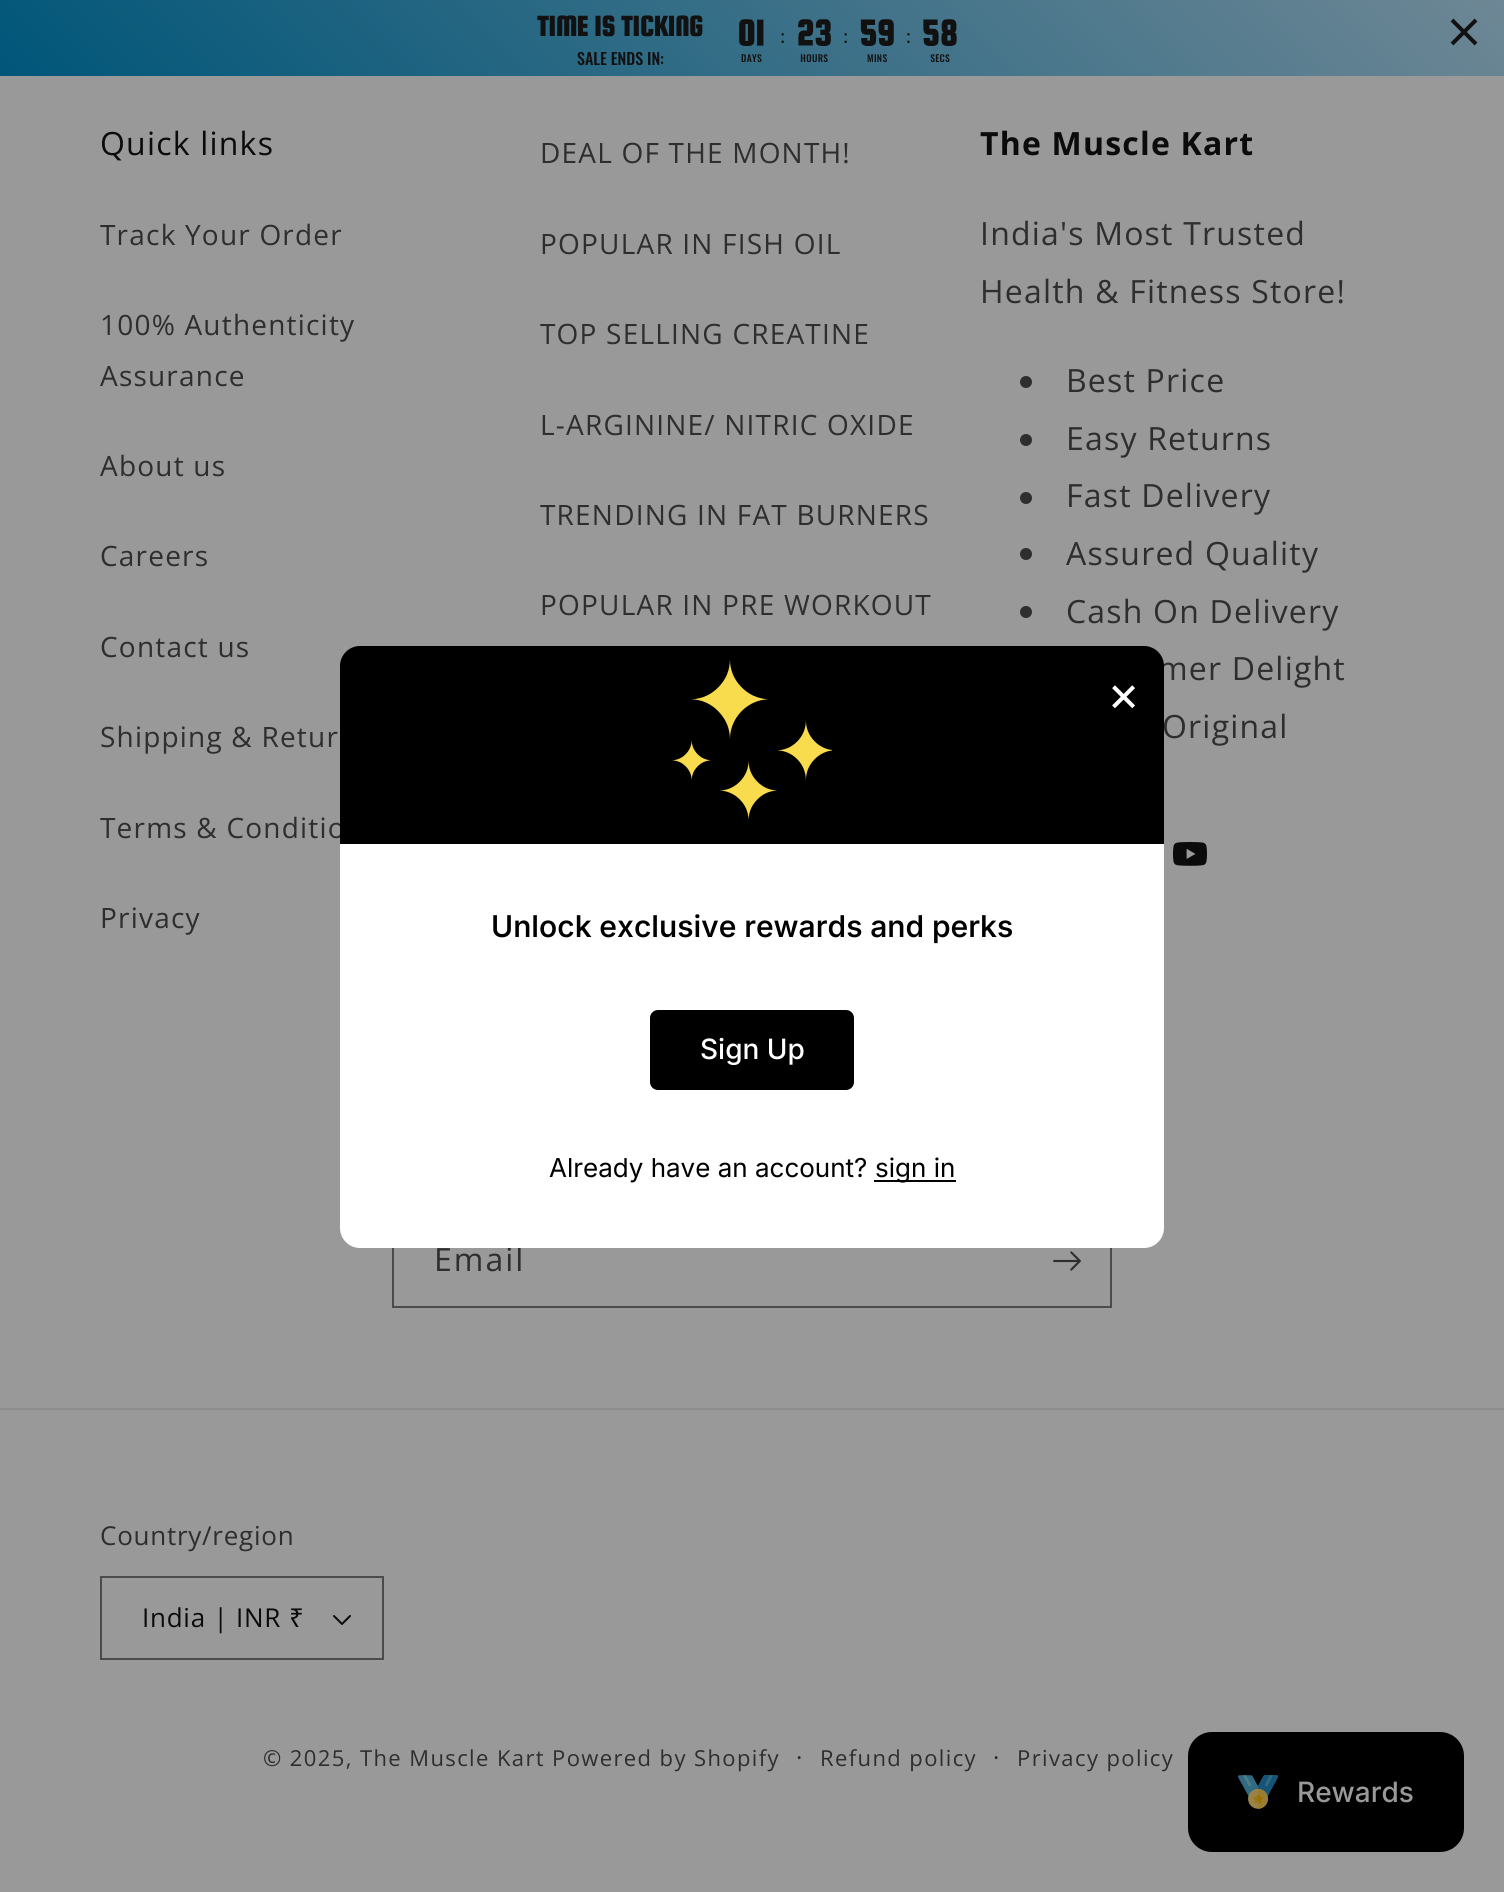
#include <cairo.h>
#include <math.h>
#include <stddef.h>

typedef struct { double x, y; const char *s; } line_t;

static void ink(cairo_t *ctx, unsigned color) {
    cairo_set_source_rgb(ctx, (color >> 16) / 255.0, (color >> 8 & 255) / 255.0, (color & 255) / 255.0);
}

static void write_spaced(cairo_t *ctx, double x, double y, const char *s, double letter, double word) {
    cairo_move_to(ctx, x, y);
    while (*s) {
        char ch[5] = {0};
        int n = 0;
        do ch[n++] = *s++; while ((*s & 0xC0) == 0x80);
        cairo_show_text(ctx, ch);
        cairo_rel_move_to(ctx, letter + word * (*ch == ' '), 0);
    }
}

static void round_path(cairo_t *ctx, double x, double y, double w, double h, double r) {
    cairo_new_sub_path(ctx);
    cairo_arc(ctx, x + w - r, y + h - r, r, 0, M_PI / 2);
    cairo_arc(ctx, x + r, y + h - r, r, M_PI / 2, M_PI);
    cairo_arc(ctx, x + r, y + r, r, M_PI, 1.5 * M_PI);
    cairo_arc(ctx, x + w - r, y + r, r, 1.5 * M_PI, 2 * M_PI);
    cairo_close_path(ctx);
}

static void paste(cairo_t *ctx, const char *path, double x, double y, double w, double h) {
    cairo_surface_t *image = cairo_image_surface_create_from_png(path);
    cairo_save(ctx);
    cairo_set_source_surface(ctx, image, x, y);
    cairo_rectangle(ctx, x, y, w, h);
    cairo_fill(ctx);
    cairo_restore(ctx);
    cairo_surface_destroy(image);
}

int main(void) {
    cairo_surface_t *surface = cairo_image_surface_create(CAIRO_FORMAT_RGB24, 1504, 1892);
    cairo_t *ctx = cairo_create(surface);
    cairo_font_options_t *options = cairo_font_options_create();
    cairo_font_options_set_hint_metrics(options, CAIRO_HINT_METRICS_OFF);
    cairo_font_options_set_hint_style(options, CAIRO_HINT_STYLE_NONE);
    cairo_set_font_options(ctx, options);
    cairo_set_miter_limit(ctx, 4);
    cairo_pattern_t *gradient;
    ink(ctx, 0x999999);
    cairo_paint(ctx);
    gradient = cairo_pattern_create_linear(357, 433, 1147, -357);
    cairo_pattern_add_color_stop_rgba(gradient, 0, 0, 0.337, 0.475, 1);
    cairo_pattern_add_color_stop_rgba(gradient, 1, 0.431, 0.529, 0.584, 1);
    cairo_set_source(ctx, gradient);
    cairo_pattern_destroy(gradient);
    cairo_rectangle(ctx, 0, 0, 1504, 76);
    cairo_fill(ctx);
    cairo_select_font_face(ctx, "Squada One", CAIRO_FONT_SLANT_NORMAL, CAIRO_FONT_WEIGHT_BOLD);
    cairo_set_font_size(ctx, 30);
    ink(ctx, 0x111111);
    cairo_move_to(ctx, 537, 36);
    cairo_show_text(ctx, "TIME IS TICKING");
    cairo_select_font_face(ctx, "Oswald Medium", CAIRO_FONT_SLANT_NORMAL, CAIRO_FONT_WEIGHT_NORMAL);
    cairo_set_font_size(ctx, 16);
    cairo_move_to(ctx, 577, 65);
    cairo_show_text(ctx, "SALE ENDS IN:");
    paste(ctx, "media/1.png", 739, 19, 218, 43);
    cairo_new_path(ctx);
    cairo_move_to(ctx, 1476, 20);
    cairo_line_to(ctx, 1452, 44);
    cairo_move_to(ctx, 1476, 44);
    cairo_line_to(ctx, 1452, 20);
    cairo_set_line_width(ctx, 4);
    cairo_stroke(ctx);
    cairo_select_font_face(ctx, "Open Sans", CAIRO_FONT_SLANT_NORMAL, CAIRO_FONT_WEIGHT_NORMAL);
    cairo_set_font_size(ctx, 32);
    ink(ctx, 0x0B0B0B);
    write_spaced(ctx, 100, 155, "Quick links", 1.2, 0);
    cairo_set_font_size(ctx, 28);
    ink(ctx, 0x2E2E2E);
    {
        static const line_t items[] = {
            {100, 245, "Track Your Order"},
            {100, 335, "100% Authenticity"},
            {100, 386, "Assurance"},
            {100, 476, "About us"},
            {100, 566, "Careers"},
            {100, 657, "Contact us"},
            {100, 747, "Shipping & Retur"},
            {100, 838, "Terms & Conditio"},
            {100, 928, "Privacy"},
            {540, 163, "DEAL OF THE MONTH!"},
            {540, 254, "POPULAR IN FISH OIL"},
            {540, 344, "TOP SELLING CREATINE"},
            {540, 435, "L-ARGININE/ NITRIC OXIDE"},
            {540, 525, "TRENDING IN FAT BURNERS"},
            {540, 615, "POPULAR IN PRE WORKOUT"},
        };
        for (size_t i = 0; i < sizeof items / sizeof *items; i++) {
            write_spaced(ctx, items[i].x, items[i].y, items[i].s, 1.2, 0);
        }
    }
    cairo_select_font_face(ctx, "Open Sans", CAIRO_FONT_SLANT_NORMAL, CAIRO_FONT_WEIGHT_BOLD);
    cairo_set_font_size(ctx, 32);
    ink(ctx, 0x0B0B0B);
    write_spaced(ctx, 980, 155, "The Muscle Kart", 1.2, 0);
    cairo_select_font_face(ctx, "Open Sans", CAIRO_FONT_SLANT_NORMAL, CAIRO_FONT_WEIGHT_NORMAL);
    ink(ctx, 0x2E2E2E);
    write_spaced(ctx, 980, 245, "India's Most Trusted", 1.2, 0);
    write_spaced(ctx, 980, 303, "Health & Fitness Store!", 1.2, 0);
    cairo_new_path(ctx);
    cairo_arc(ctx, 1026, 382, 6, 0, 2 * M_PI);
    cairo_fill(ctx);
    write_spaced(ctx, 1066, 392, "Best Price", 1.2, 0);
    cairo_new_path(ctx);
    cairo_arc(ctx, 1026, 440, 6, 0, 2 * M_PI);
    cairo_fill(ctx);
    write_spaced(ctx, 1066, 450, "Easy Returns", 1.2, 0);
    cairo_new_path(ctx);
    cairo_arc(ctx, 1026, 498, 6, 0, 2 * M_PI);
    cairo_fill(ctx);
    write_spaced(ctx, 1066, 507, "Fast Delivery", 1.2, 0);
    cairo_new_path(ctx);
    cairo_arc(ctx, 1026, 554, 6, 0, 2 * M_PI);
    cairo_fill(ctx);
    write_spaced(ctx, 1066, 565, "Assured Quality", 1.2, 0);
    cairo_new_path(ctx);
    cairo_arc(ctx, 1026, 612, 6, 0, 2 * M_PI);
    cairo_fill(ctx);
    {
        static const line_t items[] = {
            {1066, 623, "Cash On Delivery"},
            {1158, 680, "mer Delight"},
            {1162, 738, "Original"},
        };
        for (size_t i = 0; i < sizeof items / sizeof *items; i++) {
            write_spaced(ctx, items[i].x, items[i].y, items[i].s, 1.2, 0);
        }
    }
    paste(ctx, "media/2.png", 1173, 842, 34, 24);
    cairo_rectangle(ctx, 393, 1215, 718, 92);
    ink(ctx, 0x4B4B4B);
    cairo_set_line_width(ctx, 2);
    cairo_stroke(ctx);
    ink(ctx, 0x2E2E2E);
    write_spaced(ctx, 434, 1271, "Email", 2, 0);
    paste(ctx, "media/3.png", 1053, 1251, 28, 20);
    ink(ctx, 0x8E8E8E);
    cairo_rectangle(ctx, 0, 1408, 1504, 2);
    cairo_fill(ctx);
    cairo_set_font_size(ctx, 26);
    ink(ctx, 0x2E2E2E);
    write_spaced(ctx, 100, 1545, "Country/region", 0.75, 0);
    paste(ctx, "media/4.png", 333, 1615, 18, 10);
    cairo_rectangle(ctx, 101, 1577, 282, 82);
    ink(ctx, 0x4B4B4B);
    cairo_stroke(ctx);
    ink(ctx, 0x0B0B0B);
    write_spaced(ctx, 142, 1627, "India | INR", 0.75, 0);
    cairo_select_font_face(ctx, "Noto Sans", CAIRO_FONT_SLANT_NORMAL, CAIRO_FONT_WEIGHT_NORMAL);
    write_spaced(ctx, 289, 1627, "₹", 0.75, 0);
    cairo_select_font_face(ctx, "Open Sans", CAIRO_FONT_SLANT_NORMAL, CAIRO_FONT_WEIGHT_NORMAL);
    cairo_set_font_size(ctx, 22);
    ink(ctx, 0x2E2E2E);
    write_spaced(ctx, 263, 1766, "© 2025, The Muscle Kart", 1.4, 0);
    write_spaced(ctx, 552, 1766, "Powered by Shopify", 1.4, 0);
    cairo_set_font_size(ctx, 24);
    write_spaced(ctx, 796, 1766, "·", 1.4, 0);
    cairo_set_font_size(ctx, 22);
    write_spaced(ctx, 820, 1766, "Refund policy", 1.4, 0);
    cairo_set_font_size(ctx, 24);
    write_spaced(ctx, 993, 1766, "·", 1.4, 0);
    cairo_set_font_size(ctx, 22);
    write_spaced(ctx, 1017, 1766, "Privacy policy", 1.4, 0);
    ink(ctx, 0x000000);
    cairo_new_path(ctx);
    cairo_move_to(ctx, 360, 646);
    cairo_line_to(ctx, 1144, 646);
    cairo_curve_to(ctx, 1155, 646, 1164, 655, 1164, 666);
    cairo_line_to(ctx, 1164, 844);
    cairo_line_to(ctx, 340, 844);
    cairo_line_to(ctx, 340, 666);
    cairo_curve_to(ctx, 340, 655, 349, 646, 360, 646);
    cairo_close_path(ctx);
    cairo_fill(ctx);
    paste(ctx, "media/5.png", 672, 660, 160, 159);
    ink(ctx, 0xFFFFFF);
    cairo_new_path(ctx);
    cairo_move_to(ctx, 340, 844);
    cairo_line_to(ctx, 1164, 844);
    cairo_line_to(ctx, 1164, 1228);
    cairo_curve_to(ctx, 1164, 1239, 1155, 1248, 1144, 1248);
    cairo_line_to(ctx, 360, 1248);
    cairo_curve_to(ctx, 349, 1248, 340, 1239, 340, 1228);
    cairo_close_path(ctx);
    cairo_fill(ctx);
    cairo_select_font_face(ctx, "Inter", CAIRO_FONT_SLANT_NORMAL, CAIRO_FONT_WEIGHT_NORMAL);
    cairo_set_font_size(ctx, 50);
    cairo_move_to(ctx, 1107, 711);
    cairo_show_text(ctx, "×");
    cairo_select_font_face(ctx, "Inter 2 Medium", CAIRO_FONT_SLANT_NORMAL, CAIRO_FONT_WEIGHT_NORMAL);
    cairo_set_font_size(ctx, 30);
    ink(ctx, 0x000000);
    cairo_move_to(ctx, 491, 937);
    cairo_show_text(ctx, "Unlock exclusive rewards and perks");
    round_path(ctx, 650, 1010, 204, 80, 8);
    cairo_fill(ctx);
    cairo_select_font_face(ctx, "Inter Medium", CAIRO_FONT_SLANT_NORMAL, CAIRO_FONT_WEIGHT_NORMAL);
    cairo_set_font_size(ctx, 28);
    ink(ctx, 0xFFFFFF);
    cairo_move_to(ctx, 700, 1059);
    cairo_show_text(ctx, "Sign Up");
    cairo_select_font_face(ctx, "Inter", CAIRO_FONT_SLANT_NORMAL, CAIRO_FONT_WEIGHT_NORMAL);
    cairo_set_font_size(ctx, 26);
    ink(ctx, 0x000000);
    cairo_move_to(ctx, 549, 1177);
    cairo_show_text(ctx, "Already have an account?");
    cairo_rectangle(ctx, 874, 1180, 82, 2);
    cairo_fill(ctx);
    cairo_move_to(ctx, 875, 1177);
    cairo_show_text(ctx, "sign in");
    round_path(ctx, 1188, 1732, 276, 120, 24);
    cairo_fill(ctx);
    paste(ctx, "media/6.png", 1238, 1775, 40, 34);
    cairo_select_font_face(ctx, "Inter Medium", CAIRO_FONT_SLANT_NORMAL, CAIRO_FONT_WEIGHT_NORMAL);
    cairo_set_font_size(ctx, 28);
    ink(ctx, 0x999999);
    cairo_move_to(ctx, 1297, 1802);
    cairo_show_text(ctx, "Rewards");
    cairo_surface_write_to_png(surface, "image.png");
    cairo_font_options_destroy(options);
    cairo_destroy(ctx);
    cairo_surface_destroy(surface);
    return 0;
}
